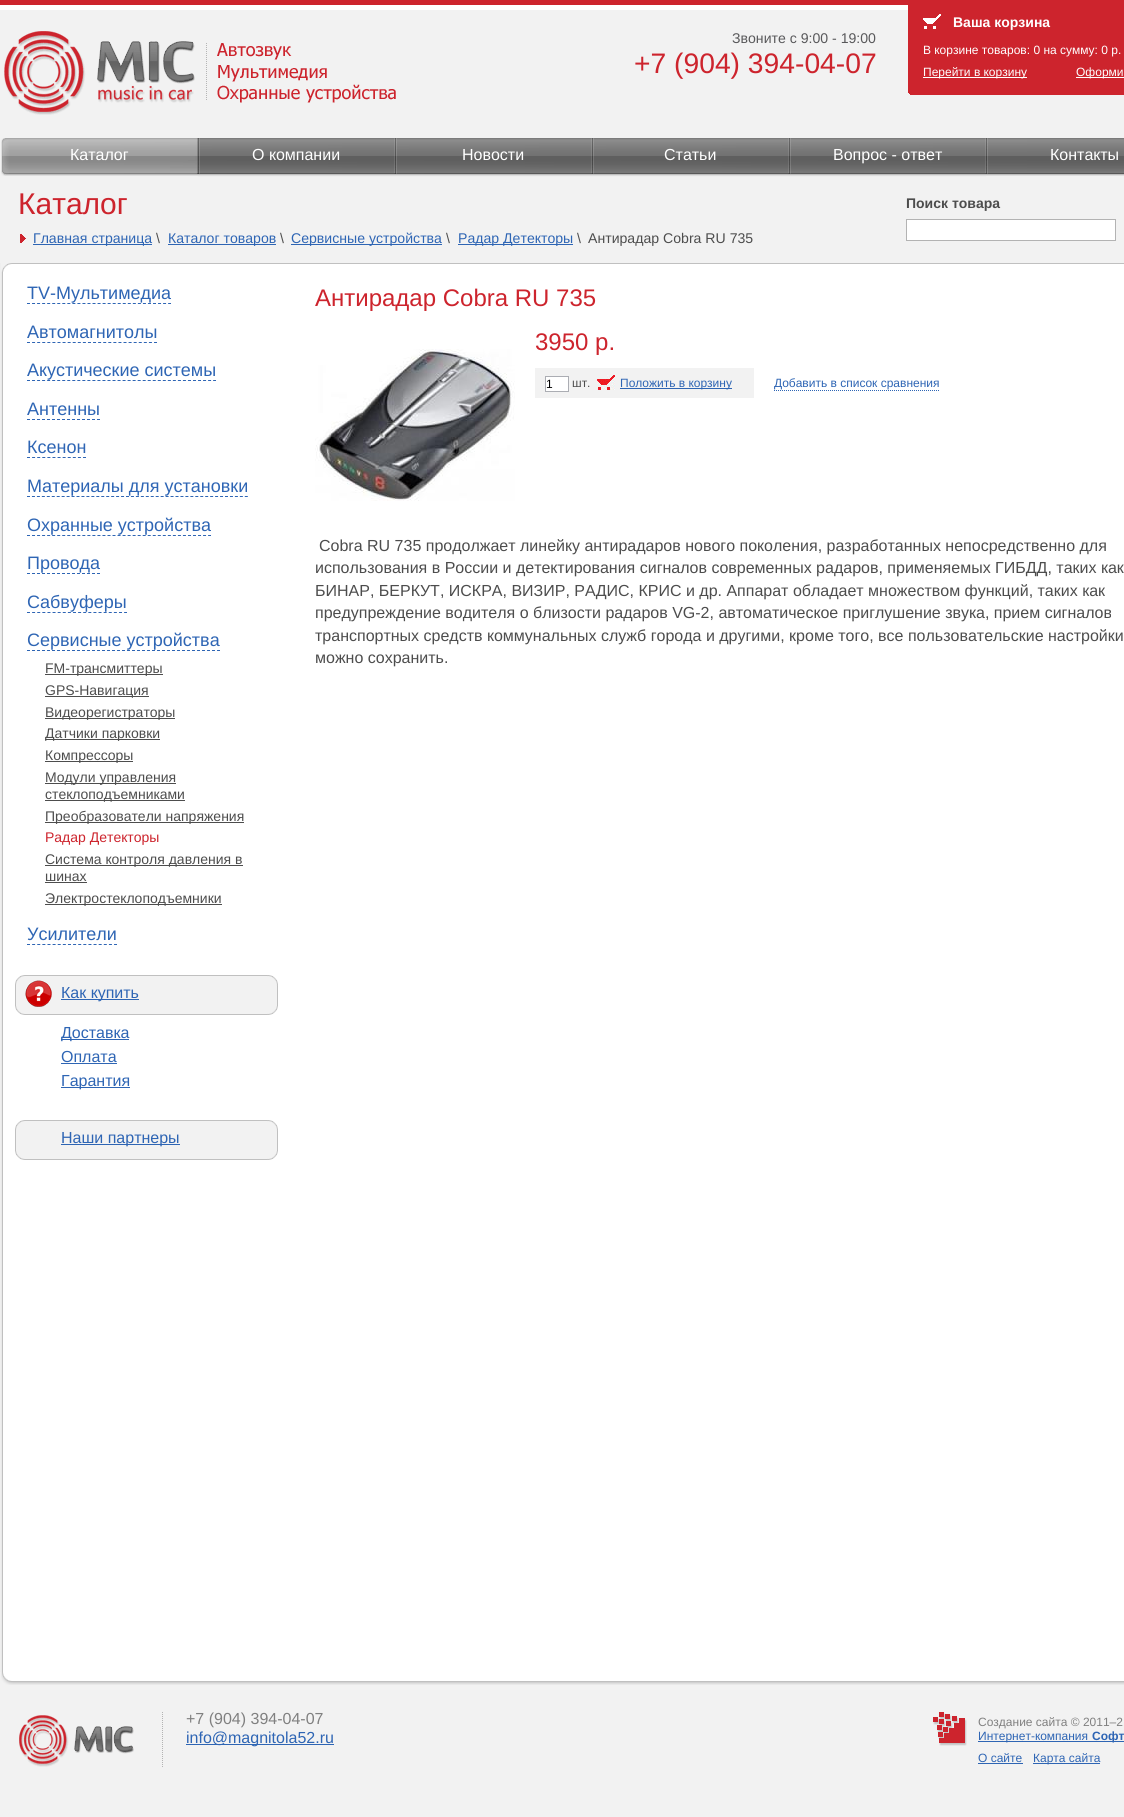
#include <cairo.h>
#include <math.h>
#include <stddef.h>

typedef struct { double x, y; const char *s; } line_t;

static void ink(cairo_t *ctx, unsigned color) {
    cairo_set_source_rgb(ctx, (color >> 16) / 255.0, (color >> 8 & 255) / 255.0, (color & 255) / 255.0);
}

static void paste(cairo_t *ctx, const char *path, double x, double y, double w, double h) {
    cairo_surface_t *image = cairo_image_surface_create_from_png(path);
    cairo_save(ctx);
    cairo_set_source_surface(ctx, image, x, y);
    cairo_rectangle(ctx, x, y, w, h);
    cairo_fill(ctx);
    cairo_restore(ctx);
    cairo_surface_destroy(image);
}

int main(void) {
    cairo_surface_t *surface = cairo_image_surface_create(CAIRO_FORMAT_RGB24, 1124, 1817);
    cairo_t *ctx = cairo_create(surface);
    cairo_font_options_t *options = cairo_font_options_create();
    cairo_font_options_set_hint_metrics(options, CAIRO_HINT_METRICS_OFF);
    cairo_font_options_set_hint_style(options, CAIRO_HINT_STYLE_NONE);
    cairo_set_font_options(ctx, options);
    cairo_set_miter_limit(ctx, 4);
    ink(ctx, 0xFFFFFF);
    cairo_paint(ctx);
    paste(ctx, "media/1.png", 0, 263, 1124, 1409);
    paste(ctx, "media/2.png", 0, 0, 908, 10);
    ink(ctx, 0xF2F2F2);
    cairo_rectangle(ctx, 0, 10, 1124, 253);
    cairo_fill(ctx);
    paste(ctx, "media/3.png", 4, 31, 392, 84);
    cairo_select_font_face(ctx, "Liberation Sans", CAIRO_FONT_SLANT_NORMAL, CAIRO_FONT_WEIGHT_NORMAL);
    cairo_set_font_size(ctx, 14.1);
    ink(ctx, 0x58585A);
    cairo_move_to(ctx, 732, 43);
    cairo_show_text(ctx, "Звоните с 9:00 - 19:00");
    cairo_set_font_size(ctx, 28.25);
    ink(ctx, 0xCD242D);
    cairo_move_to(ctx, 634, 73);
    cairo_show_text(ctx, "+7 (904) 394-04-07");
    cairo_rectangle(ctx, 908, 0, 216, 95);
    cairo_fill(ctx);
    paste(ctx, "media/4.png", 908, 93, 2, 2);
    paste(ctx, "media/5.png", 923, 14, 18, 15);
    cairo_select_font_face(ctx, "Liberation Sans", CAIRO_FONT_SLANT_NORMAL, CAIRO_FONT_WEIGHT_BOLD);
    cairo_set_font_size(ctx, 14);
    ink(ctx, 0xFFFFFF);
    cairo_move_to(ctx, 953, 27);
    cairo_show_text(ctx, "Ваша корзина");
    cairo_select_font_face(ctx, "Liberation Sans", CAIRO_FONT_SLANT_NORMAL, CAIRO_FONT_WEIGHT_NORMAL);
    cairo_set_font_size(ctx, 12);
    cairo_move_to(ctx, 923, 54);
    cairo_show_text(ctx, "В корзине товаров: 0 на сумму: 0 р.");
    cairo_rectangle(ctx, 923, 77, 104, 1);
    cairo_fill(ctx);
    cairo_move_to(ctx, 923, 76);
    cairo_show_text(ctx, "Перейти в корзину");
    cairo_rectangle(ctx, 1076, 77, 48, 1);
    cairo_fill(ctx);
    cairo_move_to(ctx, 1076, 76);
    cairo_show_text(ctx, "Оформи");
    paste(ctx, "media/6.png", 1, 138, 197, 38);
    paste(ctx, "media/7.png", 2, 138, 195, 37);
    cairo_set_font_size(ctx, 16);
    cairo_move_to(ctx, 70, 160);
    cairo_show_text(ctx, "Каталог");
    paste(ctx, "media/8.png", 198, 138, 197, 39);
    cairo_move_to(ctx, 252, 160);
    cairo_show_text(ctx, "О компании");
    paste(ctx, "media/8.png", 395, 138, 197, 39);
    cairo_move_to(ctx, 462, 160);
    cairo_show_text(ctx, "Новости");
    paste(ctx, "media/8.png", 592, 138, 197, 39);
    cairo_move_to(ctx, 664, 160);
    cairo_show_text(ctx, "Статьи");
    paste(ctx, "media/8.png", 789, 138, 197, 39);
    cairo_move_to(ctx, 833, 160);
    cairo_show_text(ctx, "Вопрос - ответ");
    paste(ctx, "media/9.png", 986, 138, 138, 38);
    cairo_move_to(ctx, 1050, 160);
    cairo_show_text(ctx, "Контакты");
    paste(ctx, "media/10.png", 1, 263, 1123, 9);
    cairo_set_font_size(ctx, 30);
    ink(ctx, 0xCD242D);
    cairo_move_to(ctx, 18, 214);
    cairo_show_text(ctx, "Каталог");
    paste(ctx, "media/11.png", 20, 234, 6, 9);
    ink(ctx, 0x2E65B4);
    cairo_rectangle(ctx, 33, 244, 119, 1);
    cairo_fill(ctx);
    cairo_set_font_size(ctx, 14.1);
    cairo_move_to(ctx, 33, 243);
    cairo_show_text(ctx, "Главная страница");
    ink(ctx, 0x4D4D4D);
    cairo_move_to(ctx, 156, 243);
    cairo_show_text(ctx, "\\");
    ink(ctx, 0x2E65B4);
    cairo_rectangle(ctx, 168, 244, 108, 1);
    cairo_fill(ctx);
    cairo_move_to(ctx, 168, 243);
    cairo_show_text(ctx, "Каталог товаров");
    ink(ctx, 0x4D4D4D);
    cairo_move_to(ctx, 280, 243);
    cairo_show_text(ctx, "\\");
    ink(ctx, 0x2E65B4);
    cairo_rectangle(ctx, 291, 244, 151, 1);
    cairo_fill(ctx);
    cairo_move_to(ctx, 291, 243);
    cairo_show_text(ctx, "Сервисные устройства");
    ink(ctx, 0x4D4D4D);
    cairo_move_to(ctx, 446, 243);
    cairo_show_text(ctx, "\\");
    ink(ctx, 0x2E65B4);
    cairo_rectangle(ctx, 458, 244, 115, 1);
    cairo_fill(ctx);
    cairo_move_to(ctx, 458, 243);
    cairo_show_text(ctx, "Радар Детекторы");
    ink(ctx, 0x4D4D4D);
    cairo_move_to(ctx, 577, 243);
    cairo_show_text(ctx, "\\");
    cairo_move_to(ctx, 588, 243);
    cairo_show_text(ctx, "Антирадар Cobra RU 735");
    cairo_set_font_size(ctx, 18);
    ink(ctx, 0x2E65B4);
    cairo_move_to(ctx, 27, 299);
    cairo_show_text(ctx, "TV-Мультимедиа");
    cairo_new_path(ctx);
    cairo_move_to(ctx, 27, 303.5);
    cairo_line_to(ctx, 171, 303.5);
    cairo_set_line_width(ctx, 1);
    cairo_set_dash(ctx, (double[]){3, 2.04}, 2, 0);
    cairo_stroke(ctx);
    cairo_move_to(ctx, 27, 338);
    cairo_show_text(ctx, "Автомагнитолы");
    cairo_new_path(ctx);
    cairo_move_to(ctx, 27, 342.5);
    cairo_line_to(ctx, 157, 342.5);
    cairo_set_dash(ctx, (double[]){3, 2.08}, 2, 0);
    cairo_stroke(ctx);
    cairo_move_to(ctx, 27, 376);
    cairo_show_text(ctx, "Акустические системы");
    cairo_new_path(ctx);
    cairo_move_to(ctx, 27, 380.5);
    cairo_line_to(ctx, 216, 380.5);
    cairo_set_dash(ctx, (double[]){3, 2.03}, 2, 0);
    cairo_stroke(ctx);
    cairo_move_to(ctx, 27, 415);
    cairo_show_text(ctx, "Антенны");
    cairo_new_path(ctx);
    cairo_move_to(ctx, 27, 419.5);
    cairo_line_to(ctx, 100, 419.5);
    cairo_set_dash(ctx, (double[]){3, 2}, 2, 0);
    cairo_stroke(ctx);
    cairo_move_to(ctx, 27, 453);
    cairo_show_text(ctx, "Ксенон");
    cairo_new_path(ctx);
    cairo_move_to(ctx, 27, 457.5);
    cairo_line_to(ctx, 86, 457.5);
    cairo_set_dash(ctx, (double[]){3, 2.09}, 2, 0);
    cairo_stroke(ctx);
    cairo_move_to(ctx, 27, 492);
    cairo_show_text(ctx, "Материалы для установки");
    cairo_new_path(ctx);
    cairo_move_to(ctx, 27, 496.5);
    cairo_line_to(ctx, 248, 496.5);
    cairo_set_dash(ctx, (double[]){3, 1.95}, 2, 0);
    cairo_stroke(ctx);
    cairo_move_to(ctx, 27, 531);
    cairo_show_text(ctx, "Охранные устройства");
    cairo_new_path(ctx);
    cairo_move_to(ctx, 27, 535.5);
    cairo_line_to(ctx, 211, 535.5);
    cairo_set_dash(ctx, (double[]){3, 2.03}, 2, 0);
    cairo_stroke(ctx);
    cairo_move_to(ctx, 27, 569);
    cairo_show_text(ctx, "Провода");
    cairo_new_path(ctx);
    cairo_move_to(ctx, 27, 573.5);
    cairo_line_to(ctx, 100, 573.5);
    cairo_set_dash(ctx, (double[]){3, 2}, 2, 0);
    cairo_stroke(ctx);
    cairo_move_to(ctx, 27, 608);
    cairo_show_text(ctx, "Сабвуферы");
    cairo_new_path(ctx);
    cairo_move_to(ctx, 27, 612.5);
    cairo_line_to(ctx, 127, 612.5);
    cairo_set_dash(ctx, (double[]){3, 2.11}, 2, 0);
    cairo_stroke(ctx);
    cairo_move_to(ctx, 27, 646);
    cairo_show_text(ctx, "Сервисные устройства");
    cairo_new_path(ctx);
    cairo_move_to(ctx, 27, 650.5);
    cairo_line_to(ctx, 220, 650.5);
    cairo_set_dash(ctx, (double[]){3, 2}, 2, 0);
    cairo_stroke(ctx);
    ink(ctx, 0x4D4D4D);
    cairo_rectangle(ctx, 45, 674, 118, 1);
    cairo_fill(ctx);
    cairo_set_font_size(ctx, 14);
    cairo_move_to(ctx, 45, 673);
    cairo_show_text(ctx, "FM-трансмиттеры");
    cairo_rectangle(ctx, 45, 696, 104, 1);
    cairo_fill(ctx);
    cairo_move_to(ctx, 45, 695);
    cairo_show_text(ctx, "GPS-Навигация");
    cairo_rectangle(ctx, 45, 718, 130, 1);
    cairo_fill(ctx);
    cairo_move_to(ctx, 45, 717);
    cairo_show_text(ctx, "Видеорегистраторы");
    cairo_rectangle(ctx, 45, 739, 115, 1);
    cairo_fill(ctx);
    cairo_move_to(ctx, 45, 738);
    cairo_show_text(ctx, "Датчики парковки");
    cairo_rectangle(ctx, 45, 761, 88, 1);
    cairo_fill(ctx);
    cairo_move_to(ctx, 45, 760);
    cairo_show_text(ctx, "Компрессоры");
    cairo_rectangle(ctx, 45, 783, 131, 1);
    cairo_fill(ctx);
    cairo_move_to(ctx, 45, 782);
    cairo_show_text(ctx, "Модули управления");
    cairo_rectangle(ctx, 45, 800, 140, 1);
    cairo_fill(ctx);
    cairo_move_to(ctx, 45, 799);
    cairo_show_text(ctx, "стеклоподъемниками");
    cairo_rectangle(ctx, 45, 822, 199, 1);
    cairo_fill(ctx);
    cairo_move_to(ctx, 45, 821);
    cairo_show_text(ctx, "Преобразователи напряжения");
    ink(ctx, 0xCD242D);
    cairo_move_to(ctx, 45, 842);
    cairo_show_text(ctx, "Радар Детекторы");
    ink(ctx, 0x4D4D4D);
    cairo_rectangle(ctx, 45, 865, 198, 1);
    cairo_fill(ctx);
    cairo_move_to(ctx, 45, 864);
    cairo_show_text(ctx, "Система контроля давления в");
    cairo_move_to(ctx, 45, 881);
    cairo_show_text(ctx, "шинах");
    cairo_rectangle(ctx, 45, 882, 42, 1);
    cairo_fill(ctx);
    cairo_rectangle(ctx, 45, 904, 177, 1);
    cairo_fill(ctx);
    cairo_move_to(ctx, 45, 903);
    cairo_show_text(ctx, "Электростеклоподъемники");
    cairo_set_font_size(ctx, 18);
    ink(ctx, 0x2E65B4);
    cairo_move_to(ctx, 27, 940);
    cairo_show_text(ctx, "Усилители");
    cairo_new_path(ctx);
    cairo_move_to(ctx, 27, 944.5);
    cairo_line_to(ctx, 117, 944.5);
    cairo_set_dash(ctx, (double[]){3, 2.12}, 2, 0);
    cairo_stroke(ctx);
    paste(ctx, "media/12.png", 15, 975, 263, 40);
    paste(ctx, "media/13.png", 25, 980, 27, 27);
    cairo_rectangle(ctx, 61, 999, 78, 1);
    cairo_fill(ctx);
    cairo_set_font_size(ctx, 16);
    cairo_move_to(ctx, 61, 998);
    cairo_show_text(ctx, "Как купить");
    cairo_rectangle(ctx, 61, 1039, 68, 1);
    cairo_fill(ctx);
    cairo_move_to(ctx, 61, 1038);
    cairo_show_text(ctx, "Доставка");
    cairo_move_to(ctx, 61, 1062);
    cairo_show_text(ctx, "Оплата");
    cairo_rectangle(ctx, 61, 1063, 56, 1);
    cairo_fill(ctx);
    cairo_rectangle(ctx, 61, 1087, 69, 1);
    cairo_fill(ctx);
    cairo_move_to(ctx, 61, 1086);
    cairo_show_text(ctx, "Гарантия");
    paste(ctx, "media/12.png", 15, 1120, 263, 40);
    cairo_rectangle(ctx, 61, 1144, 119, 1);
    cairo_fill(ctx);
    cairo_move_to(ctx, 61, 1143);
    cairo_show_text(ctx, "Наши партнеры");
    cairo_set_font_size(ctx, 24);
    ink(ctx, 0xCD242D);
    cairo_move_to(ctx, 315, 306);
    cairo_show_text(ctx, "Антирадар Cobra RU 735");
    paste(ctx, "media/14.png", 315, 349, 200, 152);
    cairo_move_to(ctx, 535, 350);
    cairo_show_text(ctx, "3950 р.");
    ink(ctx, 0xF2F2F2);
    cairo_rectangle(ctx, 535, 368, 219, 30);
    cairo_fill(ctx);
    ink(ctx, 0xFFFFFF);
    cairo_rectangle(ctx, 545.5, 376.5, 23, 15);
    cairo_fill_preserve(ctx);
    ink(ctx, 0xABADB3);
    cairo_set_dash(ctx, NULL, 0, 0);
    cairo_stroke(ctx);
    cairo_set_font_size(ctx, 12);
    ink(ctx, 0x000000);
    cairo_move_to(ctx, 546, 388);
    cairo_show_text(ctx, "1");
    ink(ctx, 0x4D4D4D);
    cairo_move_to(ctx, 572, 387);
    cairo_show_text(ctx, "шт.");
    paste(ctx, "media/15.png", 597, 375, 18, 15);
    ink(ctx, 0x2E65B4);
    cairo_rectangle(ctx, 620, 388, 112, 1);
    cairo_fill(ctx);
    cairo_move_to(ctx, 620, 387);
    cairo_show_text(ctx, "Положить в корзину");
    cairo_move_to(ctx, 774, 387);
    cairo_show_text(ctx, "Добавить в список сравнения");
    cairo_new_path(ctx);
    cairo_move_to(ctx, 774, 390.5);
    cairo_line_to(ctx, 940, 390.5);
    cairo_set_dash(ctx, (double[]){1, 1}, 2, 0);
    cairo_stroke(ctx);
    cairo_set_font_size(ctx, 16);
    ink(ctx, 0x4D4D4D);
    {
        static const line_t items[] = {
            {319, 551, "Cobra RU 735 продолжает линейку антирадаров нового поколения, разработанных непосредственно для"},
            {315, 573, "использования в России и детектирования сигналов современных радаров, применяемых ГИБДД, таких как"},
            {315, 596, "БИНАР, БЕРКУТ, ИСКРА, ВИЗИР, РАДИС, КРИС и др. Аппарат обладает множеством функций, таких как"},
            {315, 618, "предупреждение водителя о близости радаров VG-2, автоматическое приглушение звука, прием сигналов"},
            {315, 641, "транспортных средств коммунальных служб города и другими, кроме того, все пользовательские настройки"},
            {315, 663, "можно сохранить."},
        };
        for (size_t i = 0; i < sizeof items / sizeof *items; i++) {
            cairo_move_to(ctx, items[i].x, items[i].y);
            cairo_show_text(ctx, items[i].s);
        }
    }
    cairo_select_font_face(ctx, "Liberation Sans", CAIRO_FONT_SLANT_NORMAL, CAIRO_FONT_WEIGHT_BOLD);
    cairo_set_font_size(ctx, 14);
    cairo_move_to(ctx, 906, 208);
    cairo_show_text(ctx, "Поиск товара");
    ink(ctx, 0xFFFFFF);
    cairo_rectangle(ctx, 906.5, 219.5, 209, 21);
    cairo_fill_preserve(ctx);
    ink(ctx, 0xB3B3B3);
    cairo_set_dash(ctx, NULL, 0, 0);
    cairo_stroke(ctx);
    ink(ctx, 0xF2F2F2);
    cairo_rectangle(ctx, 0, 1672, 1124, 145);
    cairo_fill(ctx);
    paste(ctx, "media/16.png", 1, 1672, 1123, 13);
    paste(ctx, "media/17.png", 162, 1712, 1, 55);
    paste(ctx, "media/18.png", 19, 1715, 115, 52);
    cairo_select_font_face(ctx, "Liberation Sans", CAIRO_FONT_SLANT_NORMAL, CAIRO_FONT_WEIGHT_NORMAL);
    cairo_set_font_size(ctx, 16);
    ink(ctx, 0x808080);
    cairo_move_to(ctx, 186, 1724);
    cairo_show_text(ctx, "+7 (904) 394-04-07");
    ink(ctx, 0x2E65B4);
    cairo_rectangle(ctx, 186, 1744, 148, 1);
    cairo_fill(ctx);
    cairo_move_to(ctx, 186, 1743);
    cairo_show_text(ctx, "info@magnitola52.ru");
    paste(ctx, "media/19.png", 933, 1712, 34, 34);
    cairo_set_font_size(ctx, 12);
    ink(ctx, 0x808080);
    cairo_move_to(ctx, 978, 1726);
    cairo_show_text(ctx, "Создание сайта © 2011–2");
    ink(ctx, 0x2E65B4);
    cairo_rectangle(ctx, 978, 1741, 146, 1);
    cairo_fill(ctx);
    cairo_move_to(ctx, 978, 1740);
    cairo_show_text(ctx, "Интернет-компания");
    cairo_select_font_face(ctx, "Liberation Sans", CAIRO_FONT_SLANT_NORMAL, CAIRO_FONT_WEIGHT_BOLD);
    cairo_move_to(ctx, 1092, 1740);
    cairo_show_text(ctx, "Софт");
    cairo_select_font_face(ctx, "Liberation Sans", CAIRO_FONT_SLANT_NORMAL, CAIRO_FONT_WEIGHT_NORMAL);
    cairo_move_to(ctx, 978, 1762);
    cairo_show_text(ctx, "О сайте");
    cairo_rectangle(ctx, 978, 1763, 45, 1);
    cairo_fill(ctx);
    cairo_rectangle(ctx, 1033, 1763, 67, 1);
    cairo_fill(ctx);
    cairo_move_to(ctx, 1033, 1762);
    cairo_show_text(ctx, "Карта сайта");
    cairo_surface_write_to_png(surface, "image.png");
    cairo_font_options_destroy(options);
    cairo_destroy(ctx);
    cairo_surface_destroy(surface);
    return 0;
}
